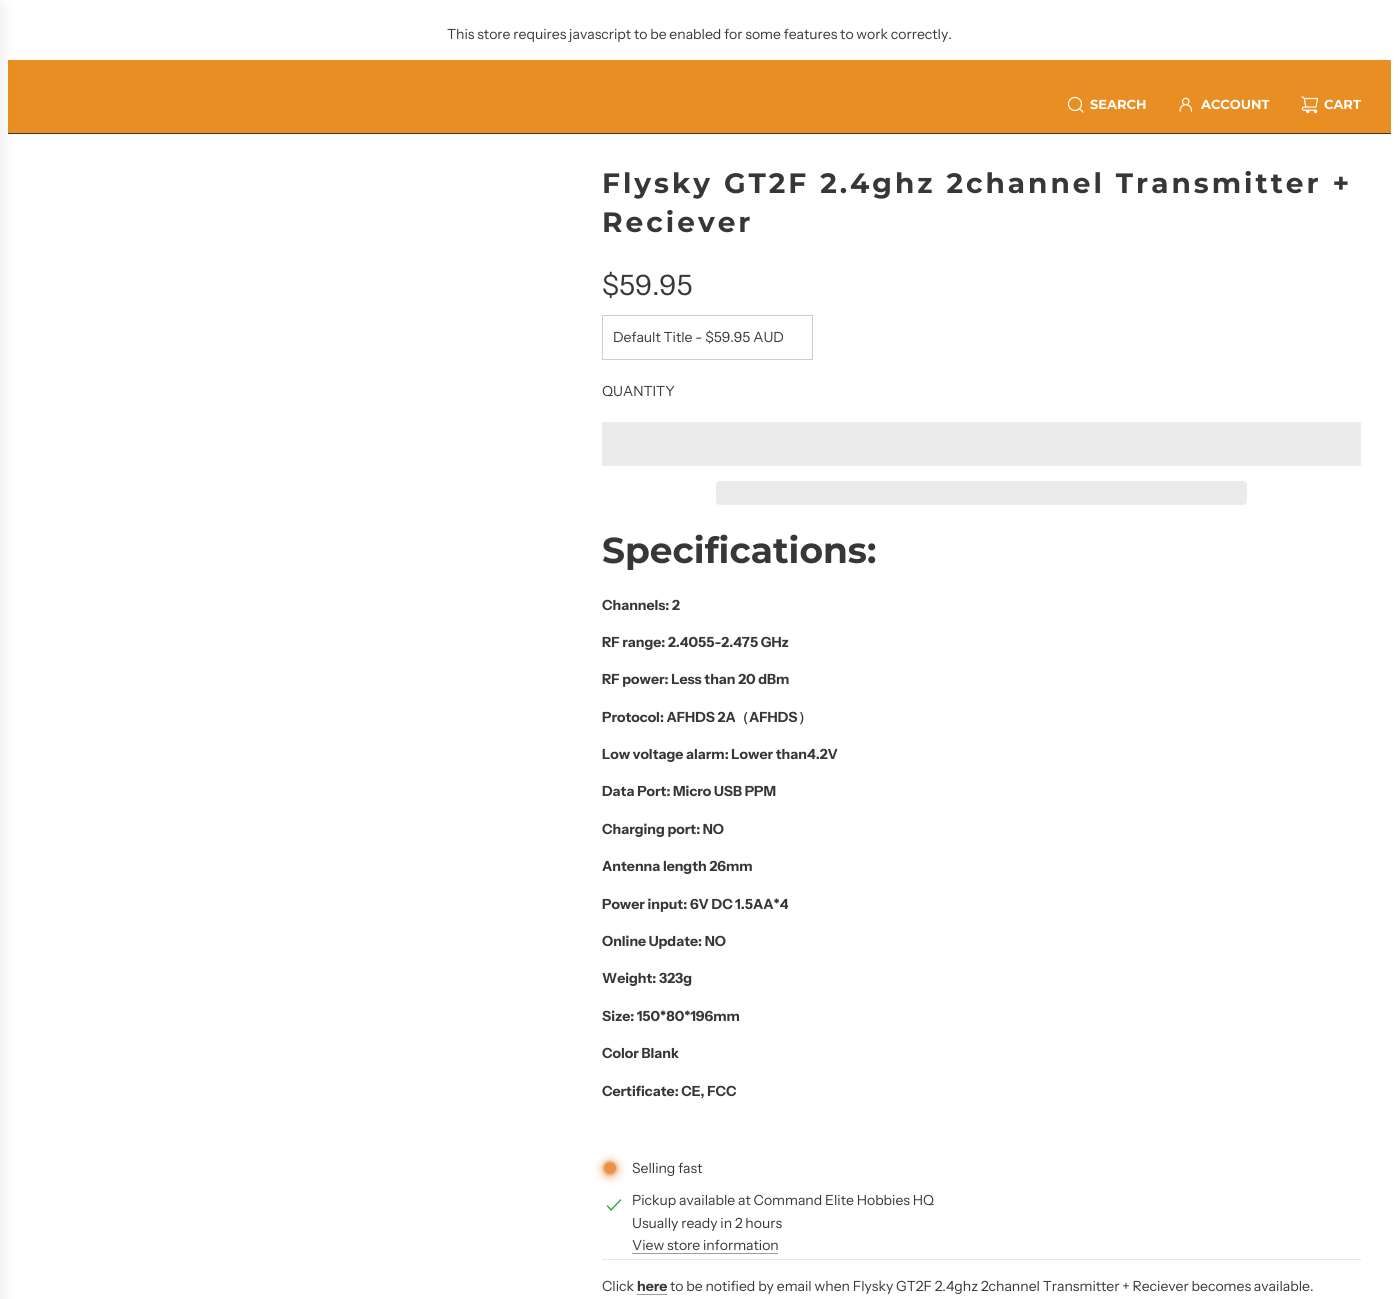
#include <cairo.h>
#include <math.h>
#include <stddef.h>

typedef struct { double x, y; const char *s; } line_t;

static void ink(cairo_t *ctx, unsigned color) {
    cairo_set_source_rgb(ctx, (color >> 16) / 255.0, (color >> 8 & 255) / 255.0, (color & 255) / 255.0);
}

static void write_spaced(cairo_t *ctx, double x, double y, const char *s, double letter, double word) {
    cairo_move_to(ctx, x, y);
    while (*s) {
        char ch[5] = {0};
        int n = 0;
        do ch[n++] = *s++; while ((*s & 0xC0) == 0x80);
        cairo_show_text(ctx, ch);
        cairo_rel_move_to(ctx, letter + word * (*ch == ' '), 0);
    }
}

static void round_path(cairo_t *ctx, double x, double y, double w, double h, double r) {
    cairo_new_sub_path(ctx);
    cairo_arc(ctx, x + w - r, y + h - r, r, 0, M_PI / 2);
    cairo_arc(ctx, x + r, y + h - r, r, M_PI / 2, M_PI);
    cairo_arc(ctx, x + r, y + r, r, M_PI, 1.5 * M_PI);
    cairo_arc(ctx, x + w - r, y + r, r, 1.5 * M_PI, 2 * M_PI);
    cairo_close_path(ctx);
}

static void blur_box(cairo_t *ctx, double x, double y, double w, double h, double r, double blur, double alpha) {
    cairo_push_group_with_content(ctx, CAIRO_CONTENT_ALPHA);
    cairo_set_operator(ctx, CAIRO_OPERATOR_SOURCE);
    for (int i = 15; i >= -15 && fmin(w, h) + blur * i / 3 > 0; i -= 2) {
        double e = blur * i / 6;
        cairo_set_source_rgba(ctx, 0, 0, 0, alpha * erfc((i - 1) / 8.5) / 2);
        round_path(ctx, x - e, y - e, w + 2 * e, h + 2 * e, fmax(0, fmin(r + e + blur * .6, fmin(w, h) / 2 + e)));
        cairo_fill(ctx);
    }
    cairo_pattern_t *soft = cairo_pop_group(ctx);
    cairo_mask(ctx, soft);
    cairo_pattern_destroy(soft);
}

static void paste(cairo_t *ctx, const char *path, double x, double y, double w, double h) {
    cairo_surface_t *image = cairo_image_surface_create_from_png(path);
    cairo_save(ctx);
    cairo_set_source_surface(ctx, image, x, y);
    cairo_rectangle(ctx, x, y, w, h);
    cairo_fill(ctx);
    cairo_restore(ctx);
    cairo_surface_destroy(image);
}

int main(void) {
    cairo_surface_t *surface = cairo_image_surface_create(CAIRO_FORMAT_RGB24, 1399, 1299);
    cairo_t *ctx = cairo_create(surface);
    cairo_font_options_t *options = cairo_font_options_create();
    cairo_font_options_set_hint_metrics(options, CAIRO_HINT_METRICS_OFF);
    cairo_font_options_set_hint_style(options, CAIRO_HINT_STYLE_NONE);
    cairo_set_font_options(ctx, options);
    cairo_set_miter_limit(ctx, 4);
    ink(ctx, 0xFFFFFF);
    cairo_paint(ctx);
    cairo_select_font_face(ctx, "Instrument Sans", CAIRO_FONT_SLANT_NORMAL, CAIRO_FONT_WEIGHT_NORMAL);
    cairo_set_font_size(ctx, 14);
    ink(ctx, 0x373737);
    cairo_move_to(ctx, 447, 39);
    cairo_show_text(ctx, "This store requires javascript to be enabled for some features to work correctly.");
    ink(ctx, 0xE98E23);
    cairo_rectangle(ctx, 8, 60, 1383, 73);
    cairo_fill(ctx);
    ink(ctx, 0x373737);
    cairo_rectangle(ctx, 8, 133, 1383, 1);
    cairo_fill(ctx);
    ink(ctx, 0x000000);
    blur_box(ctx, -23, 5, 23, 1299, 0, 7.5, 0.1);
    paste(ctx, "media/1.png", 1067, 96, 17, 17);
    cairo_select_font_face(ctx, "Montserrat", CAIRO_FONT_SLANT_NORMAL, CAIRO_FONT_WEIGHT_BOLD);
    cairo_set_font_size(ctx, 13);
    ink(ctx, 0xFFFFFF);
    cairo_move_to(ctx, 1090, 109);
    cairo_show_text(ctx, "SEARCH");
    paste(ctx, "media/2.png", 1179, 97, 14, 15);
    cairo_move_to(ctx, 1201, 109);
    cairo_show_text(ctx, "ACCOUNT");
    paste(ctx, "media/3.png", 1301, 96, 18, 18);
    cairo_move_to(ctx, 1324, 109);
    cairo_show_text(ctx, "CART");
    cairo_set_font_size(ctx, 28);
    ink(ctx, 0x373737);
    write_spaced(ctx, 602, 193, "Flysky GT2F 2.4ghz 2channel Transmitter +", 3, 0);
    write_spaced(ctx, 602, 232, "Reciever", 3, 0);
    cairo_select_font_face(ctx, "Instrument Sans", CAIRO_FONT_SLANT_NORMAL, CAIRO_FONT_WEIGHT_NORMAL);
    cairo_move_to(ctx, 602, 295);
    cairo_show_text(ctx, "$59.95");
    cairo_rectangle(ctx, 602.5, 315.5, 210, 44);
    ink(ctx, 0xCDCDCD);
    cairo_set_line_width(ctx, 1);
    cairo_stroke(ctx);
    cairo_set_font_size(ctx, 14);
    ink(ctx, 0x373737);
    cairo_move_to(ctx, 613, 342);
    cairo_show_text(ctx, "Default Title - $59.95 AUD");
    cairo_move_to(ctx, 602, 396);
    cairo_show_text(ctx, "QUANTITY");
    ink(ctx, 0xEBEBEB);
    cairo_rectangle(ctx, 602, 422, 759, 44);
    cairo_fill(ctx);
    round_path(ctx, 716, 481, 531, 24, 4);
    cairo_fill(ctx);
    cairo_select_font_face(ctx, "Montserrat", CAIRO_FONT_SLANT_NORMAL, CAIRO_FONT_WEIGHT_BOLD);
    cairo_set_font_size(ctx, 36);
    ink(ctx, 0x373737);
    cairo_move_to(ctx, 602, 563);
    cairo_show_text(ctx, "Specifications:");
    cairo_select_font_face(ctx, "Instrument Sans", CAIRO_FONT_SLANT_NORMAL, CAIRO_FONT_WEIGHT_BOLD);
    cairo_set_font_size(ctx, 14);
    {
        static const line_t items[] = {
            {602, 610, "Channels: 2"},
            {602, 647, "RF range: 2.4055-2.475 GHz"},
            {602, 684, "RF power: Less than 20 dBm"},
            {602, 722, "Protocol: AFHDS 2A"},
        };
        for (size_t i = 0; i < sizeof items / sizeof *items; i++) {
            cairo_move_to(ctx, items[i].x, items[i].y);
            cairo_show_text(ctx, items[i].s);
        }
    }
    cairo_select_font_face(ctx, "WenQuanYi Zen Hei", CAIRO_FONT_SLANT_NORMAL, CAIRO_FONT_WEIGHT_BOLD);
    cairo_move_to(ctx, 735, 722);
    cairo_show_text(ctx, "（");
    cairo_select_font_face(ctx, "Instrument Sans", CAIRO_FONT_SLANT_NORMAL, CAIRO_FONT_WEIGHT_BOLD);
    cairo_move_to(ctx, 749, 722);
    cairo_show_text(ctx, "AFHDS");
    cairo_select_font_face(ctx, "WenQuanYi Zen Hei", CAIRO_FONT_SLANT_NORMAL, CAIRO_FONT_WEIGHT_BOLD);
    cairo_move_to(ctx, 798, 722);
    cairo_show_text(ctx, "）");
    cairo_select_font_face(ctx, "Instrument Sans", CAIRO_FONT_SLANT_NORMAL, CAIRO_FONT_WEIGHT_BOLD);
    {
        static const line_t items[] = {
            {602, 759, "Low voltage alarm: Lower than4.2V"},
            {602, 796, "Data Port: Micro USB PPM"},
            {602, 834, "Charging port: NO"},
            {602, 871, "Antenna length 26mm"},
            {602, 909, "Power input: 6V DC 1.5AA*4"},
            {602, 946, "Online Update: NO"},
            {602, 983, "Weight: 323g"},
            {602, 1021, "Size: 150*80*196mm"},
            {602, 1058, "Color Blank"},
            {602, 1096, "Certificate: CE, FCC"},
        };
        for (size_t i = 0; i < sizeof items / sizeof *items; i++) {
            cairo_move_to(ctx, items[i].x, items[i].y);
            cairo_show_text(ctx, items[i].s);
        }
    }
    ink(ctx, 0xEBEBEB);
    cairo_new_path(ctx);
    cairo_arc(ctx, 610, 1168, 8, 0, 2 * M_PI);
    cairo_fill(ctx);
    ink(ctx, 0xEB9247);
    blur_box(ctx, 604, 1163, 12, 12, 6, 5, 1);
    ink(ctx, 0xEB9247);
    cairo_arc(ctx, 610, 1168, 6, 0, 2 * M_PI);
    cairo_fill(ctx);
    cairo_select_font_face(ctx, "Instrument Sans", CAIRO_FONT_SLANT_NORMAL, CAIRO_FONT_WEIGHT_NORMAL);
    ink(ctx, 0x373737);
    cairo_move_to(ctx, 632, 1173);
    cairo_show_text(ctx, "Selling fast");
    cairo_new_path(ctx);
    cairo_move_to(ctx, 607.5, 1206);
    cairo_line_to(ctx, 611, 1210);
    cairo_line_to(ctx, 620.5, 1200);
    ink(ctx, 0x28A745);
    cairo_set_line_width(ctx, 1.4);
    cairo_set_line_cap(ctx, CAIRO_LINE_CAP_ROUND);
    cairo_set_line_join(ctx, CAIRO_LINE_JOIN_ROUND);
    cairo_stroke(ctx);
    ink(ctx, 0x373737);
    {
        static const line_t items[] = {
            {632, 1205, "Pickup available at Command Elite Hobbies HQ"},
            {632, 1228, "Usually ready in 2 hours"},
            {632, 1250, "View store information"},
        };
        for (size_t i = 0; i < sizeof items / sizeof *items; i++) {
            cairo_move_to(ctx, items[i].x, items[i].y);
            cairo_show_text(ctx, items[i].s);
        }
    }
    ink(ctx, 0x9B9B9B);
    cairo_rectangle(ctx, 632, 1253, 146, 1);
    cairo_fill(ctx);
    ink(ctx, 0xE6E6E6);
    cairo_rectangle(ctx, 602, 1259, 759, 1);
    cairo_fill(ctx);
    ink(ctx, 0x373737);
    cairo_move_to(ctx, 602, 1291);
    cairo_show_text(ctx, "Click");
    cairo_select_font_face(ctx, "Instrument Sans", CAIRO_FONT_SLANT_NORMAL, CAIRO_FONT_WEIGHT_BOLD);
    cairo_move_to(ctx, 637, 1291);
    cairo_show_text(ctx, "here");
    ink(ctx, 0x9B9B9B);
    cairo_rectangle(ctx, 637, 1294, 30, 1);
    cairo_fill(ctx);
    cairo_select_font_face(ctx, "Instrument Sans", CAIRO_FONT_SLANT_NORMAL, CAIRO_FONT_WEIGHT_NORMAL);
    ink(ctx, 0x373737);
    cairo_move_to(ctx, 670, 1291);
    cairo_show_text(ctx, "to be notified by email when Flysky GT2F 2.4ghz 2channel Transmitter + Reciever becomes available.");
    cairo_surface_write_to_png(surface, "image.png");
    cairo_font_options_destroy(options);
    cairo_destroy(ctx);
    cairo_surface_destroy(surface);
    return 0;
}
